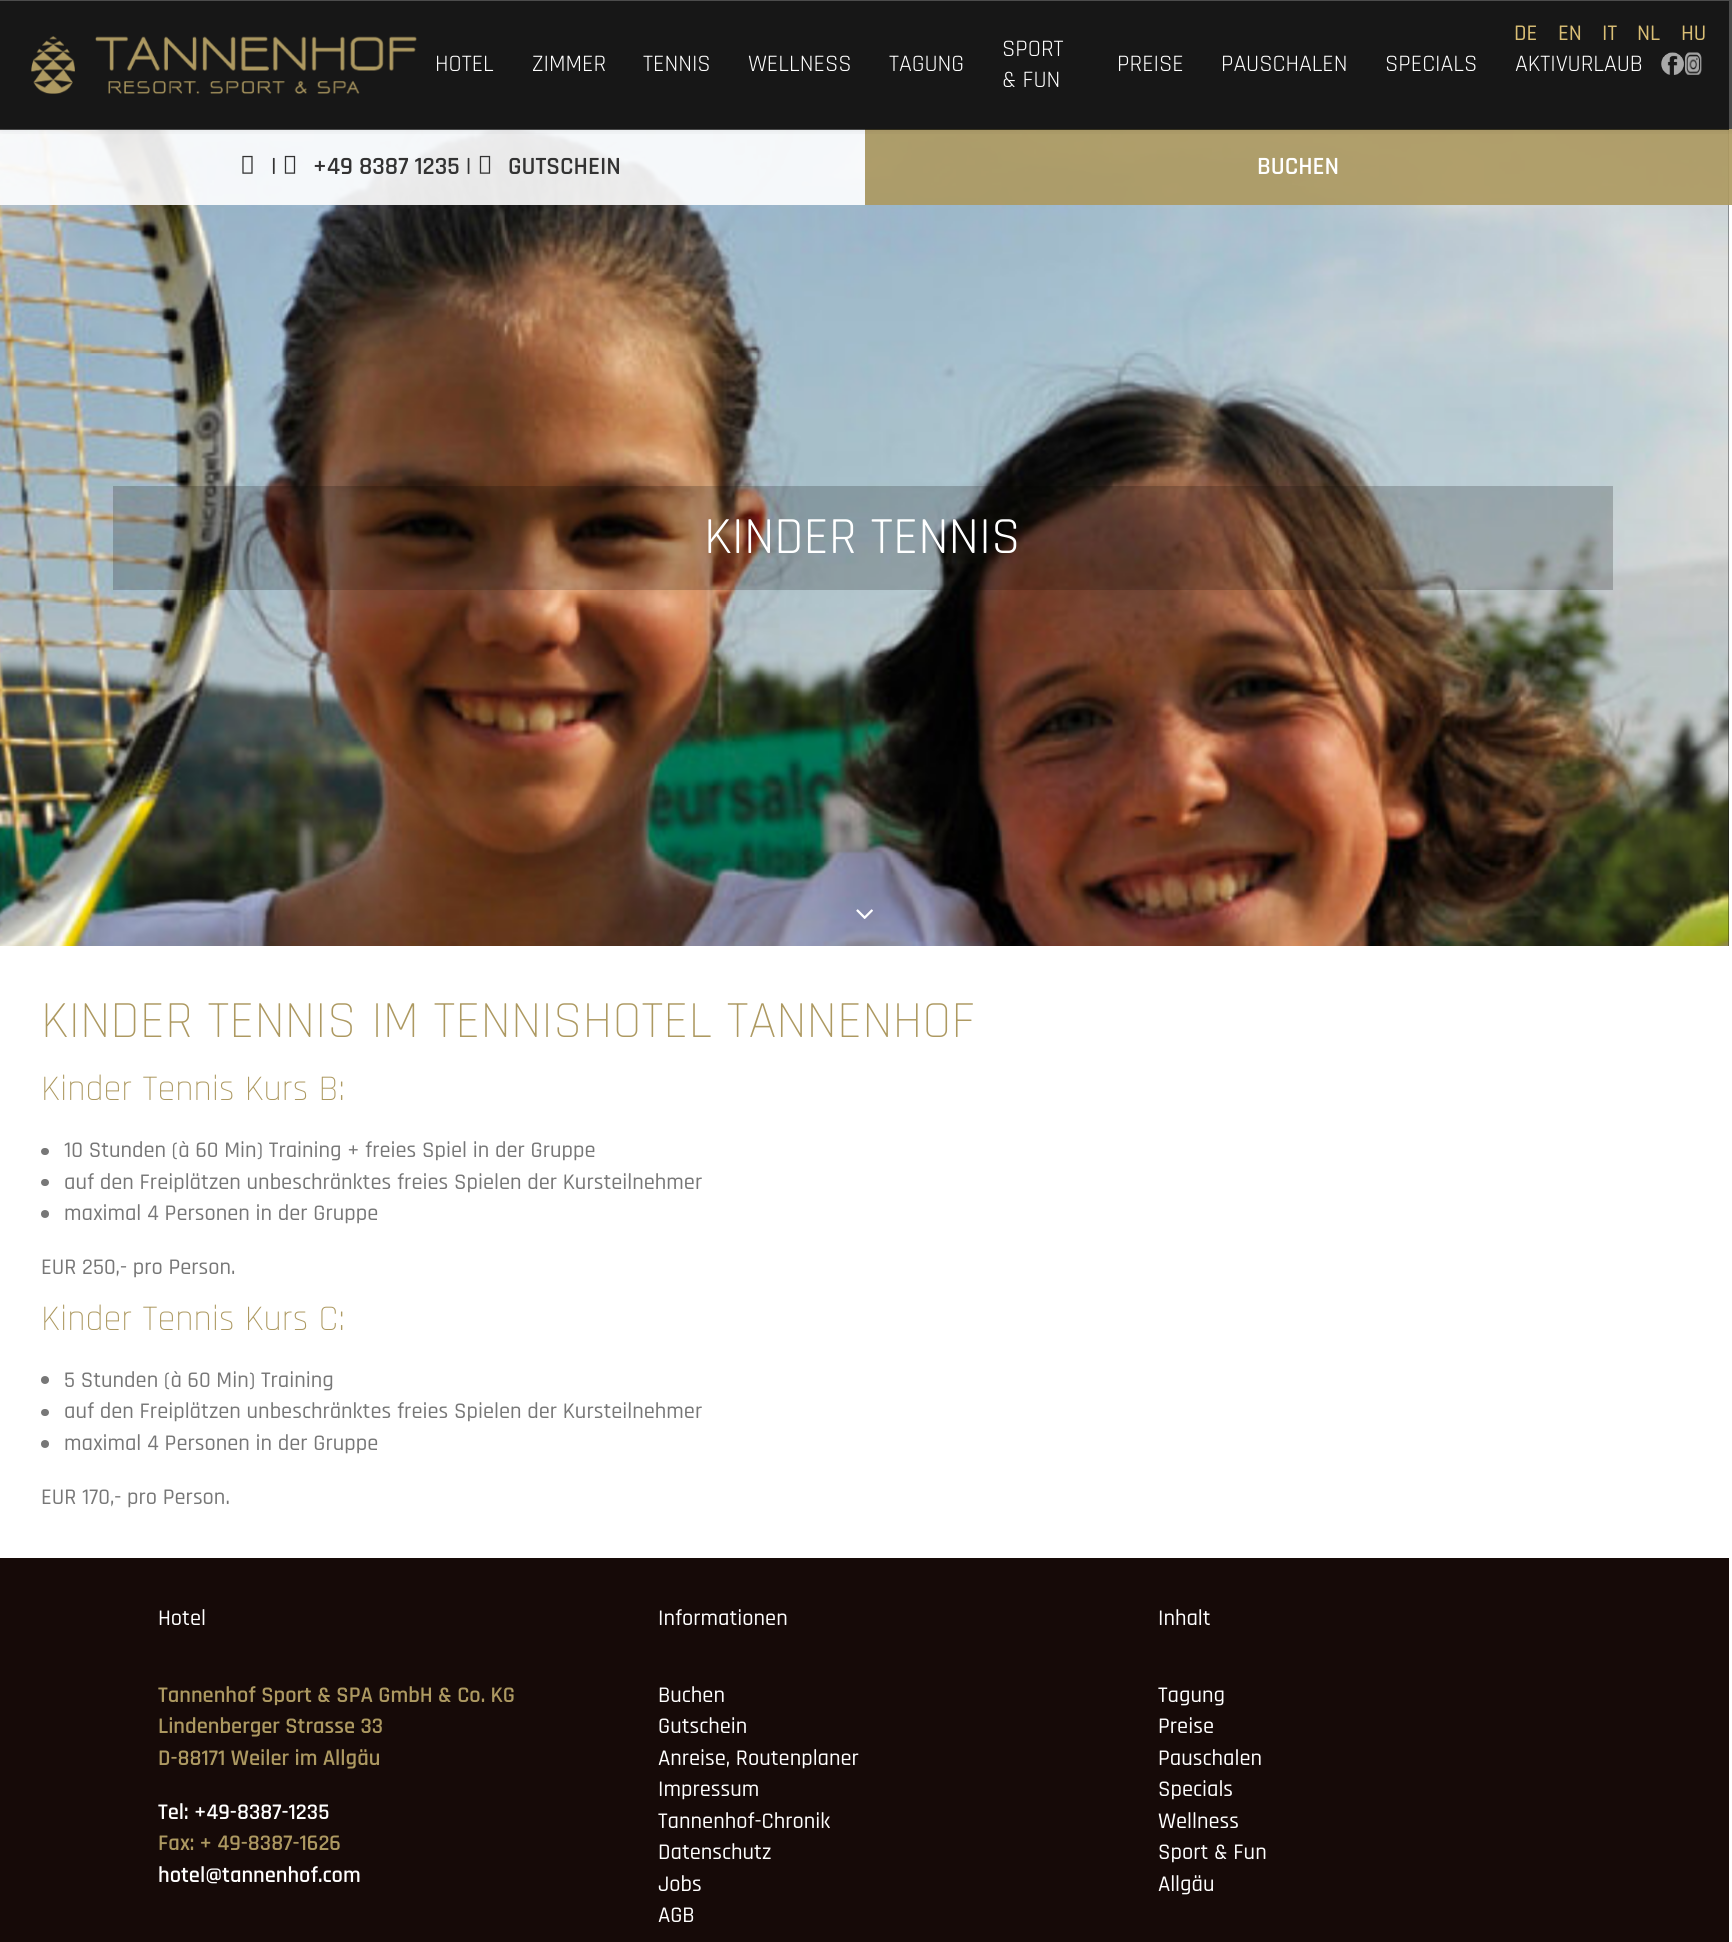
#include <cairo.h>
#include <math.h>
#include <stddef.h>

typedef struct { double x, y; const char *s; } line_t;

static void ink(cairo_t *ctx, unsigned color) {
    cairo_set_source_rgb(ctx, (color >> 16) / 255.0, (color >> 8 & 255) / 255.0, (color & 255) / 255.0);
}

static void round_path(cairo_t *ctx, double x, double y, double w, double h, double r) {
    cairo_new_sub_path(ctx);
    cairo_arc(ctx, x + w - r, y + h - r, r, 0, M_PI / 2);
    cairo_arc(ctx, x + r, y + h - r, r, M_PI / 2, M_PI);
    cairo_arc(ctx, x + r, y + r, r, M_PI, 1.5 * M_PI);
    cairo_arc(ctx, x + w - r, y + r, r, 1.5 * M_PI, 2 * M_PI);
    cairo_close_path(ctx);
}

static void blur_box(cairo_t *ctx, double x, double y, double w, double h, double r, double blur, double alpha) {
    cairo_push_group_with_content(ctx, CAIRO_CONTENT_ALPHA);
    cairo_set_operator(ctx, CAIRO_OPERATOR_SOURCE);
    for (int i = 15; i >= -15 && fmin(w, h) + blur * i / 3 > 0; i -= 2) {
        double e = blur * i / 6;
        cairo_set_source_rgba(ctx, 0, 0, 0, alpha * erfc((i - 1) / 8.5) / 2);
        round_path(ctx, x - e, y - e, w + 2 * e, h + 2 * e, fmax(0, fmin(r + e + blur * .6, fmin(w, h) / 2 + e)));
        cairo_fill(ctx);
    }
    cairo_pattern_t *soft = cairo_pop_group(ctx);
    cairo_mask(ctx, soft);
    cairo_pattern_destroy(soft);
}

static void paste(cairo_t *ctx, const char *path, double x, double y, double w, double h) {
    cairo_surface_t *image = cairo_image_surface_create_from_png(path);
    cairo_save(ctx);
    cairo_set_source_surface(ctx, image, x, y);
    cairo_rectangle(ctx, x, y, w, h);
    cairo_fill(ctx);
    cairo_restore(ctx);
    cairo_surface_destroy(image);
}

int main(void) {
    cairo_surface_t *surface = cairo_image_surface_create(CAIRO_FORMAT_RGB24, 1732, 1942);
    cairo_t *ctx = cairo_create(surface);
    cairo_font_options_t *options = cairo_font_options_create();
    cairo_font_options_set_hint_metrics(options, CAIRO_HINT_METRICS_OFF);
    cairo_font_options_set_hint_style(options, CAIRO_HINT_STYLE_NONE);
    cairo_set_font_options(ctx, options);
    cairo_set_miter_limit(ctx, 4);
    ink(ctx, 0xFFFFFF);
    cairo_paint(ctx);
    ink(ctx, 0x141618);
    cairo_rectangle(ctx, 1728, 130, 1, 816);
    cairo_fill(ctx);
    paste(ctx, "media/7.png", 0, 130, 1729, 816);
    cairo_set_source_rgba(ctx, 0.678, 0.6, 0.376, 0.9);
    cairo_rectangle(ctx, 865, 129, 867, 76);
    cairo_fill(ctx);
    cairo_set_source_rgba(ctx, 0, 0, 0, 0.7);
    cairo_rectangle(ctx, 0, 1, 1729, 129);
    cairo_fill(ctx);
    cairo_set_source_rgba(ctx, 1, 1, 1, 0.9);
    cairo_rectangle(ctx, 0, 130, 865, 75);
    cairo_fill(ctx);
    cairo_save(ctx);
    cairo_rectangle(ctx, 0, 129, 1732, 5);
    cairo_clip(ctx);
    ink(ctx, 0x000000);
    blur_box(ctx, 0, 0, 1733, 129, 0, 6, 0.1);
    cairo_restore(ctx);
    cairo_set_source_rgba(ctx, 0, 0, 0, 0.7);
    cairo_rectangle(ctx, 0, 0, 1732, 129);
    cairo_fill(ctx);
    cairo_select_font_face(ctx, "Rajdhani Medium", CAIRO_FONT_SLANT_NORMAL, CAIRO_FONT_WEIGHT_NORMAL);
    cairo_set_font_size(ctx, 22.5);
    ink(ctx, 0xD9BE75);
    {
        static const line_t items[] = {
            {1514, 40, "DE"},
            {1558, 40, "EN"},
            {1602, 40, "IT"},
            {1637, 40, "NL"},
            {1681, 40, "HU"},
        };
        for (size_t i = 0; i < sizeof items / sizeof *items; i++) {
            cairo_move_to(ctx, items[i].x, items[i].y);
            cairo_show_text(ctx, items[i].s);
        }
    }
    paste(ctx, "media/1.png", 31, 36, 386, 58);
    cairo_select_font_face(ctx, "Rajdhani", CAIRO_FONT_SLANT_NORMAL, CAIRO_FONT_WEIGHT_NORMAL);
    cairo_set_font_size(ctx, 23.75);
    ink(ctx, 0xFFFFFF);
    {
        static const line_t items[] = {
            {435, 71, "HOTEL"},
            {532, 71, "ZIMMER"},
            {643, 71, "TENNIS"},
            {748, 71, "WELLNESS"},
            {889, 71, "TAGUNG"},
            {1002, 56, "SPORT"},
            {1002, 87, "& FUN"},
            {1117, 71, "PREISE"},
            {1221, 71, "PAUSCHALEN"},
            {1385, 71, "SPECIALS"},
            {1515, 71, "AKTIVURLAUB"},
        };
        for (size_t i = 0; i < sizeof items / sizeof *items; i++) {
            cairo_move_to(ctx, items[i].x, items[i].y);
            cairo_show_text(ctx, items[i].s);
        }
    }
    paste(ctx, "media/2.png", 1661, 52, 23, 23);
    paste(ctx, "media/3.png", 1685, 52, 17, 23);
    paste(ctx, "media/4.png", 242, 155, 11, 19);
    cairo_select_font_face(ctx, "Rajdhani SemiBold", CAIRO_FONT_SLANT_NORMAL, CAIRO_FONT_WEIGHT_NORMAL);
    cairo_set_font_size(ctx, 25);
    ink(ctx, 0x333333);
    cairo_move_to(ctx, 271, 174);
    cairo_show_text(ctx, "|");
    paste(ctx, "media/5.png", 284, 155, 12, 19);
    cairo_move_to(ctx, 313, 174);
    cairo_show_text(ctx, "+49 8387 1235 |");
    paste(ctx, "media/6.png", 479, 155, 12, 19);
    cairo_move_to(ctx, 508, 174);
    cairo_show_text(ctx, "GUTSCHEIN");
    ink(ctx, 0xFFFFFF);
    cairo_move_to(ctx, 1257, 174);
    cairo_show_text(ctx, "BUCHEN");
    cairo_set_source_rgba(ctx, 0, 0, 0, 0.2);
    cairo_rectangle(ctx, 113, 486, 1500, 104);
    cairo_fill(ctx);
    cairo_select_font_face(ctx, "Rajdhani", CAIRO_FONT_SLANT_NORMAL, CAIRO_FONT_WEIGHT_NORMAL);
    cairo_set_font_size(ctx, 52.5);
    ink(ctx, 0xFFFFFF);
    cairo_move_to(ctx, 704, 553);
    cairo_show_text(ctx, "KINDER TENNIS");
    paste(ctx, "media/8.png", 856, 909, 17, 10);
    cairo_select_font_face(ctx, "Rajdhani Light", CAIRO_FONT_SLANT_NORMAL, CAIRO_FONT_WEIGHT_NORMAL);
    ink(ctx, 0xAD9961);
    cairo_move_to(ctx, 41, 1037);
    cairo_show_text(ctx, "KINDER TENNIS IM TENNISHOTEL TANNENHOF");
    cairo_set_font_size(ctx, 36.25);
    cairo_move_to(ctx, 41, 1100);
    cairo_show_text(ctx, "Kinder Tennis Kurs B:");
    ink(ctx, 0x777777);
    round_path(ctx, 41, 1148, 8, 7, 3.5);
    cairo_fill(ctx);
    cairo_select_font_face(ctx, "Rajdhani Medium", CAIRO_FONT_SLANT_NORMAL, CAIRO_FONT_WEIGHT_NORMAL);
    cairo_set_font_size(ctx, 22.5);
    cairo_move_to(ctx, 64, 1157);
    cairo_show_text(ctx, "10 Stunden (à 60 Min) Training + freies Spiel in der Gruppe");
    round_path(ctx, 41, 1179, 8, 7, 3.5);
    cairo_fill(ctx);
    cairo_move_to(ctx, 64, 1189);
    cairo_show_text(ctx, "auf den Freiplätzen unbeschränktes freies Spielen der Kursteilnehmer");
    cairo_new_path(ctx);
    cairo_arc(ctx, 45, 1214, 4, 0, 2 * M_PI);
    cairo_fill(ctx);
    cairo_move_to(ctx, 64, 1220);
    cairo_show_text(ctx, "maximal 4 Personen in der Gruppe");
    cairo_move_to(ctx, 41, 1274);
    cairo_show_text(ctx, "EUR 250,- pro Person.");
    cairo_select_font_face(ctx, "Rajdhani Light", CAIRO_FONT_SLANT_NORMAL, CAIRO_FONT_WEIGHT_NORMAL);
    cairo_set_font_size(ctx, 36.25);
    ink(ctx, 0xAD9961);
    cairo_move_to(ctx, 41, 1330);
    cairo_show_text(ctx, "Kinder Tennis Kurs C:");
    ink(ctx, 0x777777);
    cairo_new_path(ctx);
    cairo_arc(ctx, 45, 1380, 4, 0, 2 * M_PI);
    cairo_fill(ctx);
    cairo_select_font_face(ctx, "Rajdhani Medium", CAIRO_FONT_SLANT_NORMAL, CAIRO_FONT_WEIGHT_NORMAL);
    cairo_set_font_size(ctx, 22.5);
    cairo_move_to(ctx, 64, 1387);
    cairo_show_text(ctx, "5 Stunden (à 60 Min) Training");
    round_path(ctx, 41, 1409, 8, 7, 3.5);
    cairo_fill(ctx);
    cairo_move_to(ctx, 64, 1418);
    cairo_show_text(ctx, "auf den Freiplätzen unbeschränktes freies Spielen der Kursteilnehmer");
    cairo_new_path(ctx);
    cairo_arc(ctx, 45, 1444, 4, 0, 2 * M_PI);
    cairo_fill(ctx);
    cairo_move_to(ctx, 64, 1450);
    cairo_show_text(ctx, "maximal 4 Personen in der Gruppe");
    cairo_move_to(ctx, 41, 1504);
    cairo_show_text(ctx, "EUR 170,- pro Person.");
    ink(ctx, 0x160A08);
    cairo_rectangle(ctx, 0, 1558, 1729, 384);
    cairo_fill(ctx);
    ink(ctx, 0xFFFFFF);
    cairo_move_to(ctx, 158, 1625);
    cairo_show_text(ctx, "Hotel");
    cairo_select_font_face(ctx, "Rajdhani SemiBold", CAIRO_FONT_SLANT_NORMAL, CAIRO_FONT_WEIGHT_NORMAL);
    ink(ctx, 0xAD9961);
    {
        static const line_t items[] = {
            {158, 1702, "Tannenhof Sport & SPA GmbH & Co. KG"},
            {158, 1733, "Lindenberger Strasse 33"},
            {158, 1765, "D-88171 Weiler im Allgäu"},
        };
        for (size_t i = 0; i < sizeof items / sizeof *items; i++) {
            cairo_move_to(ctx, items[i].x, items[i].y);
            cairo_show_text(ctx, items[i].s);
        }
    }
    ink(ctx, 0xFFFFFF);
    cairo_move_to(ctx, 158, 1819);
    cairo_show_text(ctx, "Tel: +49-8387-1235");
    ink(ctx, 0xAD9961);
    cairo_move_to(ctx, 158, 1850);
    cairo_show_text(ctx, "Fax: + 49-8387-1626");
    ink(ctx, 0xFFFFFF);
    cairo_move_to(ctx, 158, 1882);
    cairo_show_text(ctx, "hotel@tannenhof.com");
    cairo_select_font_face(ctx, "Rajdhani Medium", CAIRO_FONT_SLANT_NORMAL, CAIRO_FONT_WEIGHT_NORMAL);
    {
        static const line_t items[] = {
            {658, 1625, "Informationen"},
            {658, 1702, "Buchen"},
            {658, 1733, "Gutschein"},
            {658, 1765, "Anreise, Routenplaner"},
            {658, 1796, "Impressum"},
            {658, 1828, "Tannenhof-Chronik"},
            {658, 1859, "Datenschutz"},
            {658, 1891, "Jobs"},
            {658, 1922, "AGB"},
            {1158, 1625, "Inhalt"},
            {1158, 1702, "Tagung"},
            {1158, 1733, "Preise"},
            {1158, 1765, "Pauschalen"},
            {1158, 1796, "Specials"},
            {1158, 1828, "Wellness"},
            {1158, 1859, "Sport & Fun"},
            {1158, 1891, "Allgäu"},
        };
        for (size_t i = 0; i < sizeof items / sizeof *items; i++) {
            cairo_move_to(ctx, items[i].x, items[i].y);
            cairo_show_text(ctx, items[i].s);
        }
    }
    cairo_surface_write_to_png(surface, "image.png");
    cairo_font_options_destroy(options);
    cairo_destroy(ctx);
    cairo_surface_destroy(surface);
    return 0;
}
